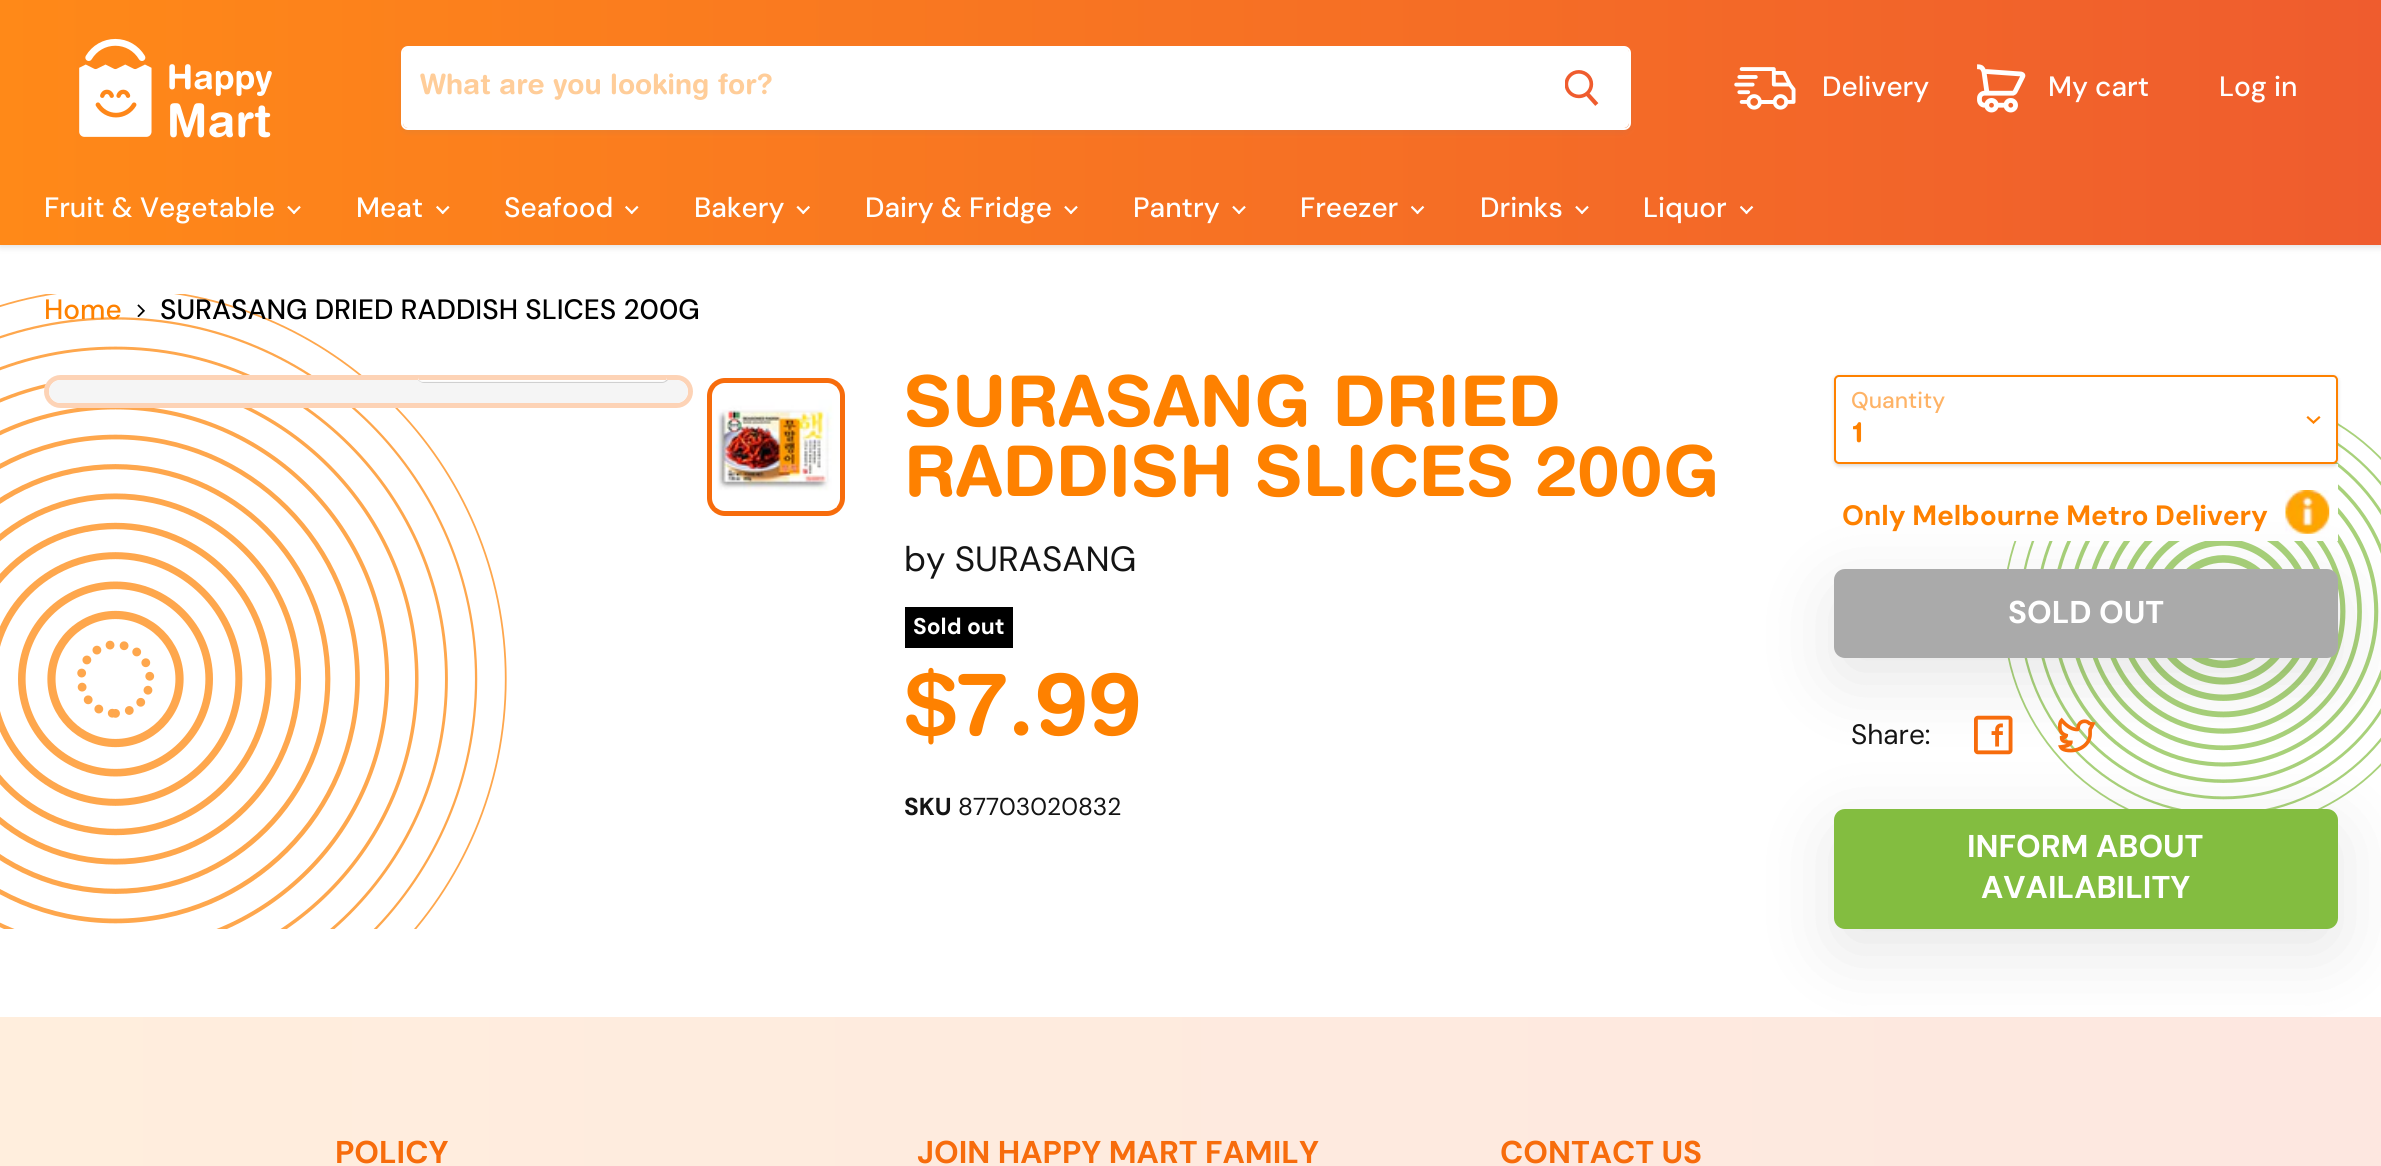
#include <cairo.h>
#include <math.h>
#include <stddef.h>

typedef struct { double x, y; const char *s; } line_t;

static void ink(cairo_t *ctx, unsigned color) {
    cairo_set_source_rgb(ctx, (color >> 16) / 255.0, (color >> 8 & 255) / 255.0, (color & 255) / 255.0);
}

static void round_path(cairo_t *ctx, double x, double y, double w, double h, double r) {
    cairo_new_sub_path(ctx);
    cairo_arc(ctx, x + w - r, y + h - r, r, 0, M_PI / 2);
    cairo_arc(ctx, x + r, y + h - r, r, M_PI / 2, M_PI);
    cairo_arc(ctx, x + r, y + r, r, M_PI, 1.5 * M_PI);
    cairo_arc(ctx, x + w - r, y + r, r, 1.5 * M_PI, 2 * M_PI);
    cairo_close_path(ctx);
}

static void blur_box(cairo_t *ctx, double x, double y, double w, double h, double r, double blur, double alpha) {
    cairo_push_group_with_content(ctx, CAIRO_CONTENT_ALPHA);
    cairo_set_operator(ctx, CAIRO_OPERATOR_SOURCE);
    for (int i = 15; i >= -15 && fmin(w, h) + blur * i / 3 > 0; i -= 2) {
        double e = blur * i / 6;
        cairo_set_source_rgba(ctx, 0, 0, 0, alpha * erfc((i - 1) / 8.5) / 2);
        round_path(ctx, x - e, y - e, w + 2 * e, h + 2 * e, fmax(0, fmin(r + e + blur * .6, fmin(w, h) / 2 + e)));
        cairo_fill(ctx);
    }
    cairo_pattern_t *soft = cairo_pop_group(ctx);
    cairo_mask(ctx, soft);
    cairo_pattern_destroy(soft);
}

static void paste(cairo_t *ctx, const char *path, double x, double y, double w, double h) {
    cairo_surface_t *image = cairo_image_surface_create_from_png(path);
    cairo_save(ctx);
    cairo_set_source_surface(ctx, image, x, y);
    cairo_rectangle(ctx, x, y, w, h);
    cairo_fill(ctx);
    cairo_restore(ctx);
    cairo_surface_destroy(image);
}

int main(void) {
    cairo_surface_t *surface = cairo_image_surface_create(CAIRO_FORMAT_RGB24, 2381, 1166);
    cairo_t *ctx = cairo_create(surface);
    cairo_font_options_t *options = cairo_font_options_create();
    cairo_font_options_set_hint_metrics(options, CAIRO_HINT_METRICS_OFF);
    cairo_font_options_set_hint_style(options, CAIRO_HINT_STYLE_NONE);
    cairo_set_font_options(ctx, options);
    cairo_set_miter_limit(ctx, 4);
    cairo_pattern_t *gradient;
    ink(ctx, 0xFFFFFF);
    cairo_paint(ctx);
    ink(ctx, 0x808080);
    blur_box(ctx, 0, 2, 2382, 245, 0, 3.5, 0.25);
    gradient = cairo_pattern_create_linear(0, 122, 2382, 123);
    cairo_pattern_add_color_stop_rgba(gradient, 0, 1, 0.537, 0.094, 1);
    cairo_pattern_add_color_stop_rgba(gradient, 1, 0.937, 0.361, 0.18, 1);
    cairo_set_source(ctx, gradient);
    cairo_pattern_destroy(gradient);
    cairo_rectangle(ctx, 0, 0, 2381, 245);
    cairo_fill(ctx);
    paste(ctx, "media/1.png", 79, 38, 193, 100);
    ink(ctx, 0x808080);
    blur_box(ctx, 401, 49, 1230, 84, 7, 2.5, 0.11);
    round_path(ctx, 402, 47, 1228, 82, 6);
    ink(ctx, 0xFFFFFF);
    cairo_stroke(ctx);
    cairo_new_path(ctx);
    cairo_move_to(ctx, 408, 47);
    cairo_line_to(ctx, 1535, 47);
    cairo_line_to(ctx, 1535, 128);
    cairo_line_to(ctx, 408, 128);
    cairo_curve_to(ctx, 405, 128, 403, 126, 403, 123);
    cairo_line_to(ctx, 403, 52);
    cairo_curve_to(ctx, 403, 49, 405, 47, 408, 47);
    cairo_close_path(ctx);
    cairo_fill(ctx);
    cairo_select_font_face(ctx, "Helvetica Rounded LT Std", CAIRO_FONT_SLANT_NORMAL, CAIRO_FONT_WEIGHT_BOLD);
    cairo_set_font_size(ctx, 28);
    ink(ctx, 0xFFCD99);
    cairo_move_to(ctx, 420, 94);
    cairo_show_text(ctx, "What are you looking for?");
    ink(ctx, 0xFFFFFF);
    cairo_new_path(ctx);
    cairo_move_to(ctx, 1536, 48);
    cairo_line_to(ctx, 1624, 48);
    cairo_curve_to(ctx, 1626, 48, 1628, 50, 1628, 52);
    cairo_line_to(ctx, 1628, 123);
    cairo_curve_to(ctx, 1628, 125, 1626, 127, 1624, 127);
    cairo_line_to(ctx, 1536, 127);
    cairo_close_path(ctx);
    cairo_fill_preserve(ctx);
    cairo_stroke(ctx);
    paste(ctx, "media/2.png", 1565, 70, 34, 36);
    paste(ctx, "media/3.png", 1734, 67, 62, 43);
    cairo_select_font_face(ctx, "DM Sans Medium", CAIRO_FONT_SLANT_NORMAL, CAIRO_FONT_WEIGHT_NORMAL);
    cairo_move_to(ctx, 1822, 96);
    cairo_show_text(ctx, "Delivery");
    paste(ctx, "media/4.png", 1977, 64, 49, 49);
    {
        static const line_t items[] = {
            {2048, 96, "My cart"},
            {2219, 96, "Log in"},
            {44, 217, "Fruit & Vegetable"},
        };
        for (size_t i = 0; i < sizeof items / sizeof *items; i++) {
            cairo_move_to(ctx, items[i].x, items[i].y);
            cairo_show_text(ctx, items[i].s);
        }
    }
    paste(ctx, "media/5.png", 287, 205, 14, 10);
    cairo_move_to(ctx, 356, 217);
    cairo_show_text(ctx, "Meat");
    paste(ctx, "media/6.png", 436, 205, 14, 10);
    cairo_move_to(ctx, 504, 217);
    cairo_show_text(ctx, "Seafood");
    paste(ctx, "media/7.png", 625, 205, 14, 10);
    cairo_move_to(ctx, 694, 217);
    cairo_show_text(ctx, "Bakery");
    paste(ctx, "media/8.png", 796, 205, 14, 10);
    cairo_move_to(ctx, 865, 217);
    cairo_show_text(ctx, "Dairy & Fridge");
    paste(ctx, "media/9.png", 1064, 205, 14, 10);
    cairo_move_to(ctx, 1133, 217);
    cairo_show_text(ctx, "Pantry");
    paste(ctx, "media/10.png", 1232, 205, 14, 10);
    cairo_move_to(ctx, 1300, 217);
    cairo_show_text(ctx, "Freezer");
    paste(ctx, "media/11.png", 1411, 205, 14, 10);
    cairo_move_to(ctx, 1480, 217);
    cairo_show_text(ctx, "Drinks");
    paste(ctx, "media/12.png", 1575, 205, 14, 10);
    cairo_move_to(ctx, 1643, 217);
    cairo_show_text(ctx, "Liquor");
    paste(ctx, "media/13.png", 1740, 205, 14, 10);
    paste(ctx, "media/14.png", 2007, 423, 374, 386);
    paste(ctx, "media/15.png", 0, 294, 507, 635);
    ink(ctx, 0xFE8100);
    cairo_move_to(ctx, 44, 319);
    cairo_show_text(ctx, "Home");
    paste(ctx, "media/16.png", 137, 304, 8, 13);
    ink(ctx, 0x000000);
    cairo_move_to(ctx, 160, 319);
    cairo_show_text(ctx, "SURASANG DRIED RADDISH SLICES 200G");
    ink(ctx, 0xFFFFFF);
    round_path(ctx, 44, 375, 649, 33, 16.5);
    cairo_fill(ctx);
    round_path(ctx, 46.5, 377.5, 644, 28, 14);
    cairo_set_source_rgba(ctx, 0.969, 0.424, 0.047, 0.3);
    cairo_set_line_width(ctx, 5);
    cairo_stroke(ctx);
    ink(ctx, 0xF5F5F5);
    round_path(ctx, 49, 380, 639, 23, 11.5);
    cairo_fill(ctx);
    ink(ctx, 0xD0D0D0);
    cairo_new_path(ctx);
    cairo_move_to(ctx, 668, 380);
    cairo_curve_to(ctx, 666, 382, 664, 383, 662, 383);
    cairo_line_to(ctx, 424, 383);
    cairo_curve_to(ctx, 422, 383, 420, 382, 418, 380);
    cairo_line_to(ctx, 421, 380);
    cairo_curve_to(ctx, 422, 381, 423, 381, 424, 381);
    cairo_line_to(ctx, 662, 381);
    cairo_curve_to(ctx, 663, 381, 664, 381, 665, 380);
    cairo_close_path(ctx);
    cairo_fill(ctx);
    cairo_set_source_rgba(ctx, 1, 1, 1, 0.9);
    cairo_new_path(ctx);
    cairo_move_to(ctx, 418, 380);
    cairo_line_to(ctx, 667, 380);
    cairo_line_to(ctx, 667, 377);
    cairo_curve_to(ctx, 667, 380, 665, 382, 662, 382);
    cairo_line_to(ctx, 423, 382);
    cairo_curve_to(ctx, 420, 382, 418, 380, 418, 377);
    cairo_close_path(ctx);
    cairo_fill(ctx);
    round_path(ctx, 709.5, 380.5, 133, 133, 15.5);
    ink(ctx, 0xF76C0C);
    cairo_stroke(ctx);
    paste(ctx, "media/17.png", 715, 386, 122, 122);
    cairo_select_font_face(ctx, "Helvetica Rounded LT Std", CAIRO_FONT_SLANT_NORMAL, CAIRO_FONT_WEIGHT_BOLD);
    cairo_set_font_size(ctx, 70);
    ink(ctx, 0xFE8100);
    cairo_move_to(ctx, 904, 426);
    cairo_show_text(ctx, "SURASANG DRIED");
    cairo_move_to(ctx, 904, 496);
    cairo_show_text(ctx, "RADDISH SLICES 200G");
    cairo_select_font_face(ctx, "DM Sans", CAIRO_FONT_SLANT_NORMAL, CAIRO_FONT_WEIGHT_NORMAL);
    cairo_set_font_size(ctx, 35);
    ink(ctx, 0x141414);
    cairo_move_to(ctx, 904, 571);
    cairo_show_text(ctx, "by SURASANG");
    ink(ctx, 0x000000);
    cairo_rectangle(ctx, 905, 607, 108, 41);
    cairo_fill(ctx);
    cairo_select_font_face(ctx, "DM Sans", CAIRO_FONT_SLANT_NORMAL, CAIRO_FONT_WEIGHT_BOLD);
    cairo_set_font_size(ctx, 22.75);
    ink(ctx, 0xFFFFFF);
    cairo_move_to(ctx, 913, 634);
    cairo_show_text(ctx, "Sold out");
    cairo_select_font_face(ctx, "Helvetica Rounded LT Std", CAIRO_FONT_SLANT_NORMAL, CAIRO_FONT_WEIGHT_BOLD);
    cairo_set_font_size(ctx, 87.5);
    ink(ctx, 0xFE8100);
    cairo_move_to(ctx, 904, 735);
    cairo_show_text(ctx, "$7.99");
    cairo_select_font_face(ctx, "DM Sans", CAIRO_FONT_SLANT_NORMAL, CAIRO_FONT_WEIGHT_BOLD);
    cairo_set_font_size(ctx, 24.5);
    ink(ctx, 0x141414);
    cairo_move_to(ctx, 904, 815);
    cairo_show_text(ctx, "SKU");
    cairo_select_font_face(ctx, "DM Sans", CAIRO_FONT_SLANT_NORMAL, CAIRO_FONT_WEIGHT_NORMAL);
    cairo_move_to(ctx, 958, 815);
    cairo_show_text(ctx, "87703020832");
    ink(ctx, 0xFFFFFF);
    cairo_rectangle(ctx, 2014, 464, 324, 77);
    cairo_fill(ctx);
    ink(ctx, 0x000000);
    blur_box(ctx, 1834, 376, 504, 90, 5, 2, 0.15);
    ink(ctx, 0xFFFFFF);
    round_path(ctx, 1835, 376, 502, 87, 4);
    cairo_fill_preserve(ctx);
    ink(ctx, 0xFE8100);
    cairo_set_line_width(ctx, 2);
    cairo_stroke(ctx);
    cairo_select_font_face(ctx, "DM Sans Medium", CAIRO_FONT_SLANT_NORMAL, CAIRO_FONT_WEIGHT_NORMAL);
    cairo_set_font_size(ctx, 22.75);
    ink(ctx, 0xFEB366);
    cairo_move_to(ctx, 1851, 408);
    cairo_show_text(ctx, "Quantity");
    cairo_new_path(ctx);
    cairo_move_to(ctx, 2313.5, 422.5);
    cairo_line_to(ctx, 2319, 417.5);
    cairo_move_to(ctx, 2313.5, 422.5);
    cairo_line_to(ctx, 2308, 417.5);
    ink(ctx, 0xFE8100);
    cairo_set_line_width(ctx, 2.2);
    cairo_set_line_cap(ctx, CAIRO_LINE_CAP_SQUARE);
    cairo_stroke(ctx);
    cairo_save(ctx);
    cairo_rectangle(ctx, 1853, 418, 434, 34);
    cairo_clip(ctx);
    cairo_select_font_face(ctx, "Helvetica Rounded LT Std", CAIRO_FONT_SLANT_NORMAL, CAIRO_FONT_WEIGHT_BOLD);
    cairo_set_font_size(ctx, 28);
    cairo_move_to(ctx, 1852, 442);
    cairo_show_text(ctx, "1");
    cairo_restore(ctx);
    cairo_select_font_face(ctx, "DM Sans", CAIRO_FONT_SLANT_NORMAL, CAIRO_FONT_WEIGHT_BOLD);
    cairo_set_font_size(ctx, 28);
    cairo_move_to(ctx, 1842, 525);
    cairo_show_text(ctx, "Only Melbourne Metro Delivery");
    paste(ctx, "media/18.png", 2285, 490, 45, 44);
    ink(ctx, 0x000000);
    blur_box(ctx, 1834, 590, 504, 89, 11, 37, 0.1);
    ink(ctx, 0xAAAAAA);
    round_path(ctx, 1835, 570, 502, 87, 10);
    cairo_fill_preserve(ctx);
    cairo_set_line_width(ctx, 2);
    cairo_set_line_cap(ctx, CAIRO_LINE_CAP_BUTT);
    cairo_stroke(ctx);
    cairo_set_font_size(ctx, 31.5);
    ink(ctx, 0xFFFFFF);
    cairo_move_to(ctx, 2008, 623);
    cairo_show_text(ctx, "SOLD OUT");
    cairo_select_font_face(ctx, "DM Sans", CAIRO_FONT_SLANT_NORMAL, CAIRO_FONT_WEIGHT_NORMAL);
    cairo_set_font_size(ctx, 28);
    ink(ctx, 0x141414);
    cairo_move_to(ctx, 1851, 744);
    cairo_show_text(ctx, "Share:");
    paste(ctx, "media/19.png", 1974, 715, 39, 40);
    paste(ctx, "media/20.png", 2058, 717, 38, 36);
    gradient = cairo_pattern_create_linear(-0.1, 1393, 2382, 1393);
    cairo_pattern_add_color_stop_rgba(gradient, 0, 1, 0.933, 0.867, 1);
    cairo_pattern_add_color_stop_rgba(gradient, 1, 0.992, 0.906, 0.878, 1);
    cairo_set_source(ctx, gradient);
    cairo_pattern_destroy(gradient);
    cairo_rectangle(ctx, 0, 1017, 2381, 149);
    cairo_fill(ctx);
    ink(ctx, 0x000000);
    blur_box(ctx, 1834, 830, 504, 120, 11, 37, 0.1);
    ink(ctx, 0x83BD40);
    round_path(ctx, 1835, 810, 502, 118, 10);
    cairo_fill_preserve(ctx);
    cairo_stroke(ctx);
    cairo_select_font_face(ctx, "DM Sans", CAIRO_FONT_SLANT_NORMAL, CAIRO_FONT_WEIGHT_BOLD);
    cairo_set_font_size(ctx, 31.5);
    ink(ctx, 0xFFFFFF);
    cairo_move_to(ctx, 1967, 857);
    cairo_show_text(ctx, "INFORM ABOUT");
    cairo_move_to(ctx, 1981, 898);
    cairo_show_text(ctx, "AVAILABILITY");
    ink(ctx, 0xF76C0C);
    {
        static const line_t items[] = {
            {335, 1163, "POLICY"},
            {917, 1163, "JOIN HAPPY MART FAMILY"},
            {1500, 1163, "CONTACT US"},
        };
        for (size_t i = 0; i < sizeof items / sizeof *items; i++) {
            cairo_move_to(ctx, items[i].x, items[i].y);
            cairo_show_text(ctx, items[i].s);
        }
    }
    cairo_surface_write_to_png(surface, "image.png");
    cairo_font_options_destroy(options);
    cairo_destroy(ctx);
    cairo_surface_destroy(surface);
    return 0;
}
